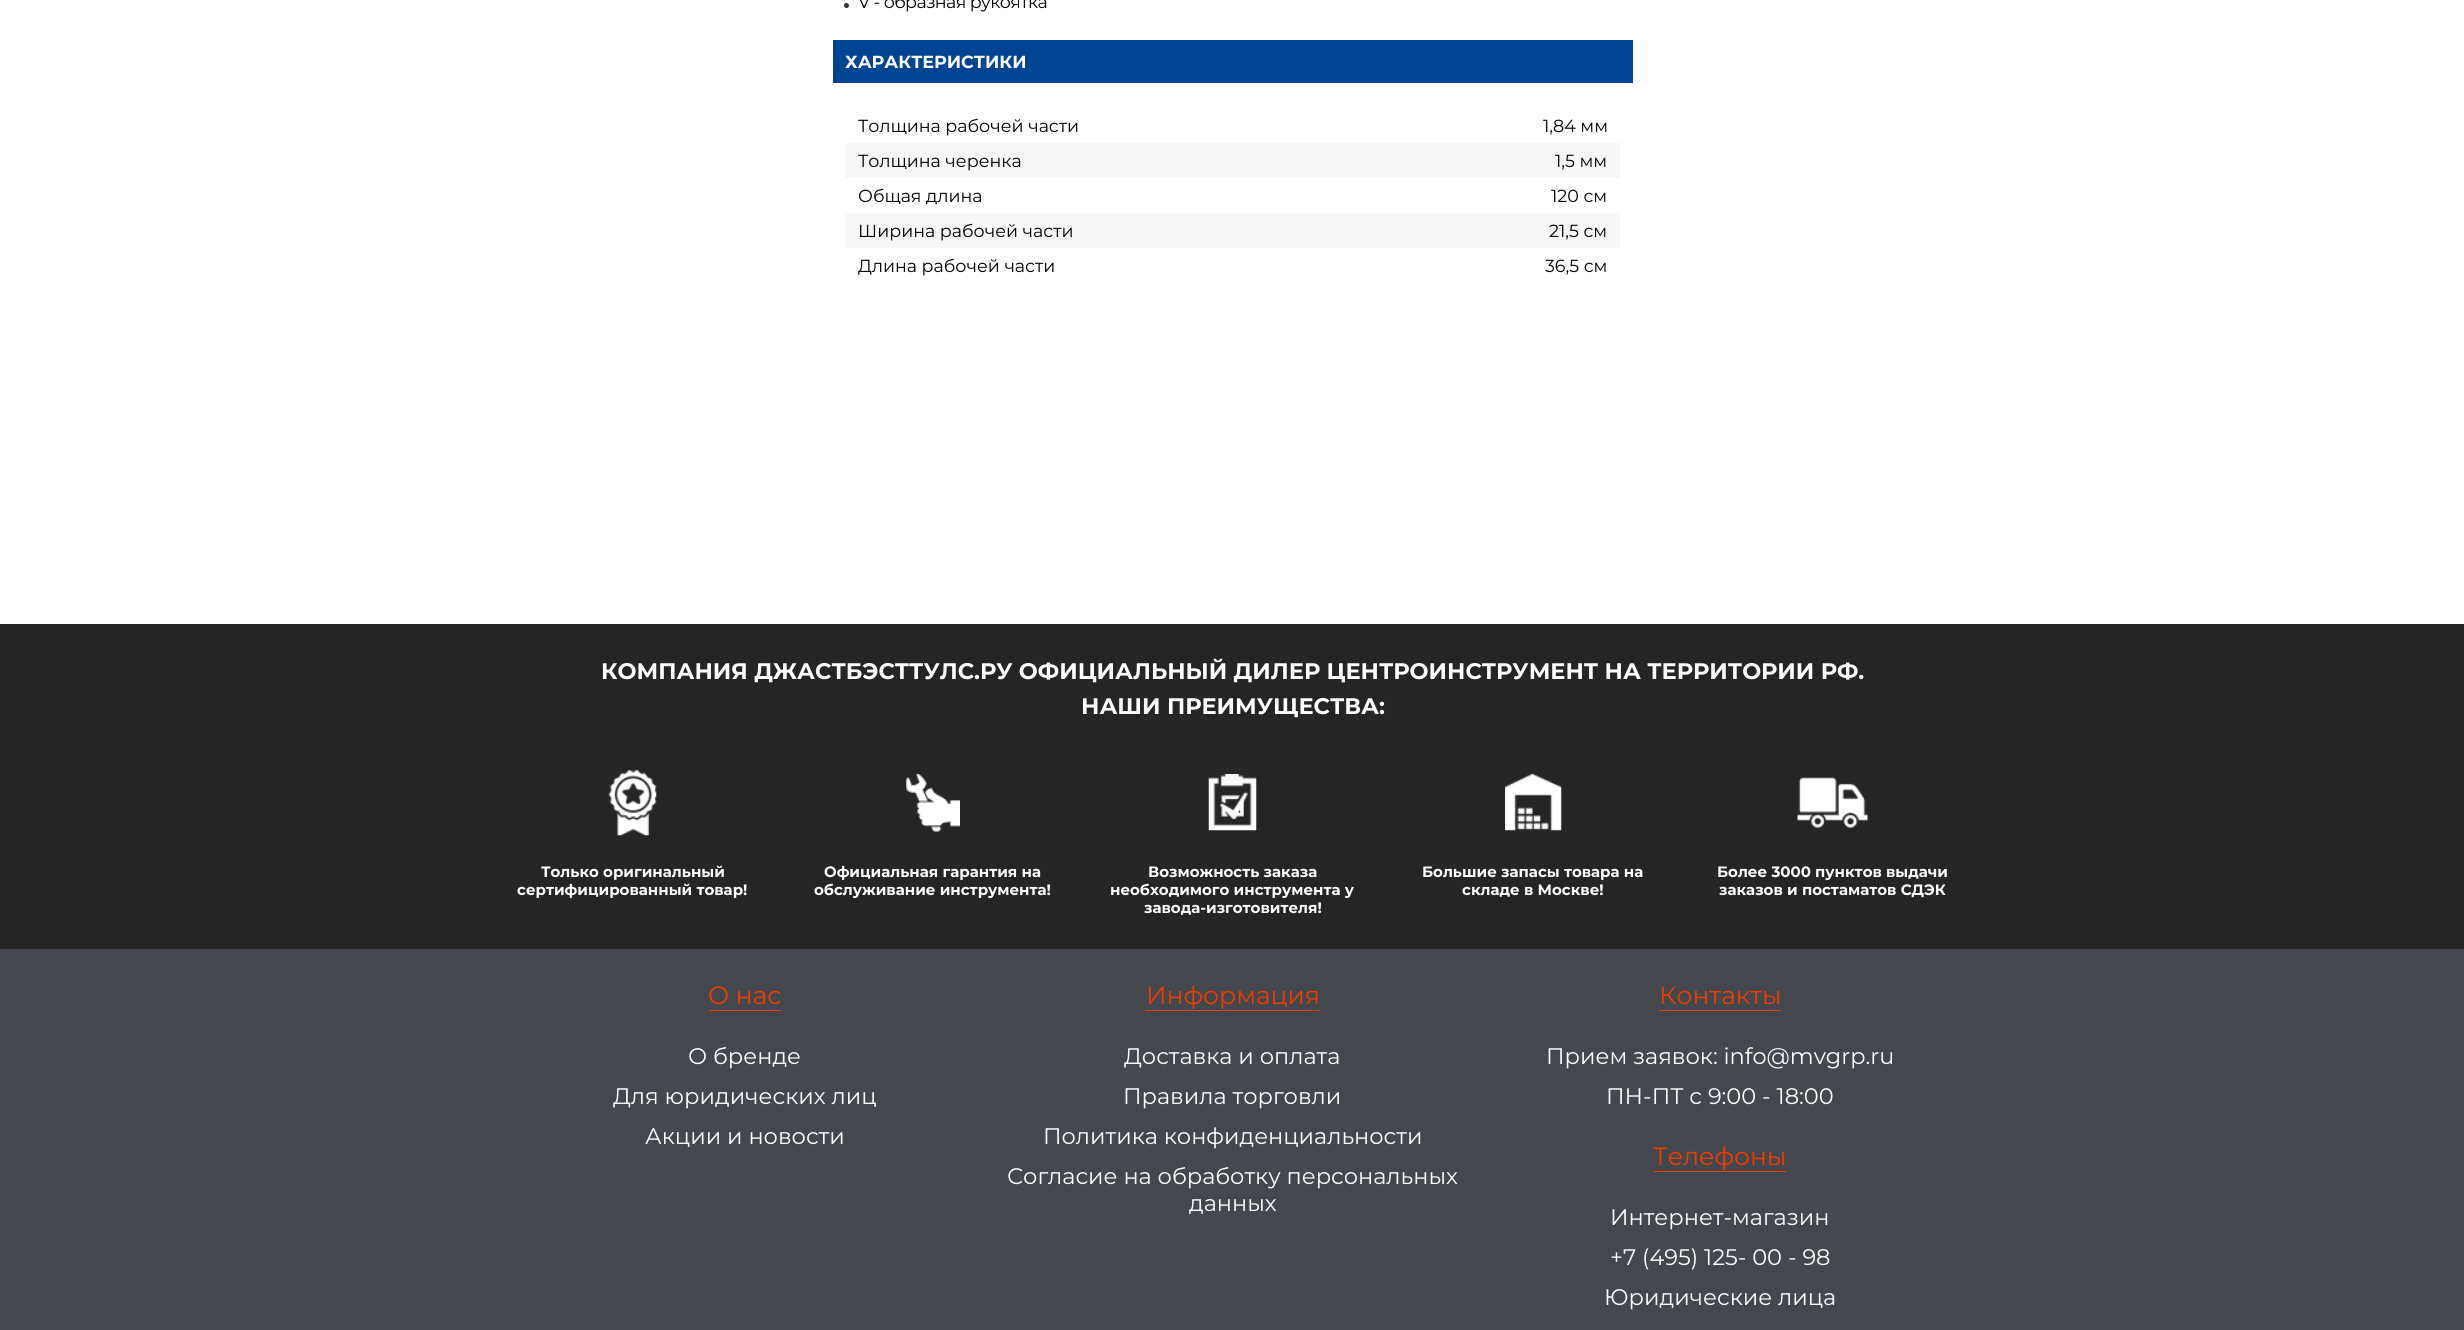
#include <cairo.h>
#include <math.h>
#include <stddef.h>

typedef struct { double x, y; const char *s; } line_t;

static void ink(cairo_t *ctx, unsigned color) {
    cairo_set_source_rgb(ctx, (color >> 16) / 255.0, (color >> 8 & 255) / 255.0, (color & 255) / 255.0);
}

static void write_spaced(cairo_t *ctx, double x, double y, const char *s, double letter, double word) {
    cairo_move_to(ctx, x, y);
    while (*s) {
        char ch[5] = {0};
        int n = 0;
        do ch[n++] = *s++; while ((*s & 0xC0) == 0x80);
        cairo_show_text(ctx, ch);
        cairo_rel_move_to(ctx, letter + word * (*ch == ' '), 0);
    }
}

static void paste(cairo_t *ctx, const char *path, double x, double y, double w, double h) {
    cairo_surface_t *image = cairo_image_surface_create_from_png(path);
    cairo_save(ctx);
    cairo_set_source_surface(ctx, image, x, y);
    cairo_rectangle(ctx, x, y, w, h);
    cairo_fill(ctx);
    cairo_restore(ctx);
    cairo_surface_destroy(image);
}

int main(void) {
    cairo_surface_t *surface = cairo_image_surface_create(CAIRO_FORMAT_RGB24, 2464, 1330);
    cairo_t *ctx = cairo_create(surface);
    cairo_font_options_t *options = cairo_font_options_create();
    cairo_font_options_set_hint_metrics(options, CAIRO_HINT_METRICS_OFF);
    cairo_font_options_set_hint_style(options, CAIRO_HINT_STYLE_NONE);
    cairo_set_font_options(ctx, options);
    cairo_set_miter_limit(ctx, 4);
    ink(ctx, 0xFFFFFF);
    cairo_paint(ctx);
    ink(ctx, 0x333333);
    cairo_arc(ctx, 846.5, 5.5, 2.5, 0, 2 * M_PI);
    cairo_fill(ctx);
    cairo_select_font_face(ctx, "Montserrat", CAIRO_FONT_SLANT_NORMAL, CAIRO_FONT_WEIGHT_NORMAL);
    cairo_set_font_size(ctx, 17.5);
    ink(ctx, 0x000000);
    write_spaced(ctx, 858, 8, "V - образная рукоятка", -0.6, 0);
    ink(ctx, 0x004494);
    cairo_rectangle(ctx, 833, 40, 800, 43);
    cairo_fill(ctx);
    cairo_select_font_face(ctx, "Montserrat", CAIRO_FONT_SLANT_NORMAL, CAIRO_FONT_WEIGHT_BOLD);
    ink(ctx, 0xFFFFFF);
    cairo_move_to(ctx, 845, 68);
    cairo_show_text(ctx, "ХАРАКТЕРИСТИКИ");
    cairo_select_font_face(ctx, "Montserrat", CAIRO_FONT_SLANT_NORMAL, CAIRO_FONT_WEIGHT_NORMAL);
    ink(ctx, 0x000000);
    cairo_move_to(ctx, 858, 132);
    cairo_show_text(ctx, "Толщина рабочей части");
    cairo_move_to(ctx, 1543, 132);
    cairo_show_text(ctx, "1,84 мм");
    ink(ctx, 0xF7F7F7);
    cairo_rectangle(ctx, 845, 143, 775, 35);
    cairo_fill(ctx);
    ink(ctx, 0x000000);
    {
        static const line_t items[] = {
            {858, 167, "Толщина черенка"},
            {1555, 167, "1,5 мм"},
            {858, 202, "Общая длина"},
            {1551, 202, "120 см"},
        };
        for (size_t i = 0; i < sizeof items / sizeof *items; i++) {
            cairo_move_to(ctx, items[i].x, items[i].y);
            cairo_show_text(ctx, items[i].s);
        }
    }
    ink(ctx, 0xF7F7F7);
    cairo_rectangle(ctx, 845, 213, 775, 35);
    cairo_fill(ctx);
    ink(ctx, 0x000000);
    {
        static const line_t items[] = {
            {858, 237, "Ширина рабочей части"},
            {1549, 237, "21,5 см"},
            {858, 272, "Длина рабочей части"},
            {1545, 272, "36,5 см"},
        };
        for (size_t i = 0; i < sizeof items / sizeof *items; i++) {
            cairo_move_to(ctx, items[i].x, items[i].y);
            cairo_show_text(ctx, items[i].s);
        }
    }
    ink(ctx, 0x252525);
    cairo_rectangle(ctx, 0, 624, 2464, 325);
    cairo_fill(ctx);
    cairo_select_font_face(ctx, "Montserrat", CAIRO_FONT_SLANT_NORMAL, CAIRO_FONT_WEIGHT_BOLD);
    cairo_set_font_size(ctx, 22.5);
    ink(ctx, 0xFFFFFF);
    cairo_move_to(ctx, 601, 679);
    cairo_show_text(ctx, "КОМПАНИЯ ДЖАСТБЭСТТУЛС.РУ ОФИЦИАЛЬНЫЙ ДИЛЕР ЦЕНТРОИНСТРУМЕНТ НА ТЕРРИТОРИИ РФ.");
    cairo_move_to(ctx, 1081, 714);
    cairo_show_text(ctx, "НАШИ ПРЕИМУЩЕСТВА:");
    paste(ctx, "media/1.png", 608, 770, 49, 66);
    cairo_set_font_size(ctx, 15);
    cairo_move_to(ctx, 541, 877);
    cairo_show_text(ctx, "Только оригинальный");
    cairo_move_to(ctx, 517, 895);
    cairo_show_text(ctx, "сертифицированный товар!");
    paste(ctx, "media/2.png", 906, 774, 54, 58);
    cairo_move_to(ctx, 824, 877);
    cairo_show_text(ctx, "Официальная гарантия на");
    cairo_move_to(ctx, 814, 895);
    cairo_show_text(ctx, "обслуживание инструмента!");
    paste(ctx, "media/3.png", 1208, 774, 49, 57);
    {
        static const line_t items[] = {
            {1148, 877, "Возможность заказа"},
            {1110, 895, "необходимого инструмента у"},
            {1144, 913, "завода-изготовителя!"},
        };
        for (size_t i = 0; i < sizeof items / sizeof *items; i++) {
            cairo_move_to(ctx, items[i].x, items[i].y);
            cairo_show_text(ctx, items[i].s);
        }
    }
    paste(ctx, "media/4.png", 1505, 774, 57, 57);
    cairo_move_to(ctx, 1422, 877);
    cairo_show_text(ctx, "Большие запасы товара на");
    cairo_move_to(ctx, 1462, 895);
    cairo_show_text(ctx, "складе в Москве!");
    paste(ctx, "media/5.png", 1797, 777, 71, 51);
    cairo_move_to(ctx, 1717, 877);
    cairo_show_text(ctx, "Более 3000 пунктов выдачи");
    cairo_move_to(ctx, 1719, 895);
    cairo_show_text(ctx, "заказов и постаматов СДЭК");
    ink(ctx, 0x44474E);
    cairo_rectangle(ctx, 0, 949, 2464, 381);
    cairo_fill(ctx);
    ink(ctx, 0xEB3D00);
    cairo_rectangle(ctx, 709, 1010, 72, 1);
    cairo_fill(ctx);
    cairo_select_font_face(ctx, "Montserrat", CAIRO_FONT_SLANT_NORMAL, CAIRO_FONT_WEIGHT_NORMAL);
    cairo_set_font_size(ctx, 25);
    cairo_move_to(ctx, 708, 1004);
    cairo_show_text(ctx, "О нас");
    cairo_set_font_size(ctx, 22.5);
    ink(ctx, 0xFFFFFF);
    {
        static const line_t items[] = {
            {688, 1064, "О бренде"},
            {613, 1104, "Для юридических лиц"},
            {645, 1144, "Акции и новости"},
        };
        for (size_t i = 0; i < sizeof items / sizeof *items; i++) {
            cairo_move_to(ctx, items[i].x, items[i].y);
            cairo_show_text(ctx, items[i].s);
        }
    }
    ink(ctx, 0xEB3D00);
    cairo_rectangle(ctx, 1145, 1010, 175, 1);
    cairo_fill(ctx);
    cairo_set_font_size(ctx, 25);
    cairo_move_to(ctx, 1146, 1004);
    cairo_show_text(ctx, "Информация");
    cairo_set_font_size(ctx, 22.5);
    ink(ctx, 0xFFFFFF);
    {
        static const line_t items[] = {
            {1124, 1064, "Доставка и оплата"},
            {1123, 1104, "Правила торговли"},
            {1043, 1144, "Политика конфиденциальности"},
            {1007, 1184, "Согласие на обработку персональных"},
            {1189, 1211, "данных"},
        };
        for (size_t i = 0; i < sizeof items / sizeof *items; i++) {
            cairo_move_to(ctx, items[i].x, items[i].y);
            cairo_show_text(ctx, items[i].s);
        }
    }
    ink(ctx, 0xEB3D00);
    cairo_rectangle(ctx, 1659, 1010, 122, 1);
    cairo_fill(ctx);
    cairo_set_font_size(ctx, 25);
    cairo_move_to(ctx, 1659, 1004);
    cairo_show_text(ctx, "Контакты");
    cairo_set_font_size(ctx, 22.5);
    ink(ctx, 0xFFFFFF);
    cairo_move_to(ctx, 1546, 1064);
    cairo_show_text(ctx, "Прием заявок: info@mvgrp.ru");
    cairo_move_to(ctx, 1606, 1104);
    cairo_show_text(ctx, "ПН-ПТ с 9:00 - 18:00");
    ink(ctx, 0xEB3D00);
    cairo_rectangle(ctx, 1654, 1171, 132, 1);
    cairo_fill(ctx);
    cairo_set_font_size(ctx, 25);
    cairo_move_to(ctx, 1653, 1165);
    cairo_show_text(ctx, "Телефоны");
    cairo_set_font_size(ctx, 22.5);
    ink(ctx, 0xFFFFFF);
    {
        static const line_t items[] = {
            {1610, 1225, "Интернет-магазин"},
            {1610, 1265, "+7 (495) 125- 00 - 98"},
            {1604, 1305, "Юридические лица"},
        };
        for (size_t i = 0; i < sizeof items / sizeof *items; i++) {
            cairo_move_to(ctx, items[i].x, items[i].y);
            cairo_show_text(ctx, items[i].s);
        }
    }
    cairo_surface_write_to_png(surface, "image.png");
    cairo_font_options_destroy(options);
    cairo_destroy(ctx);
    cairo_surface_destroy(surface);
    return 0;
}
